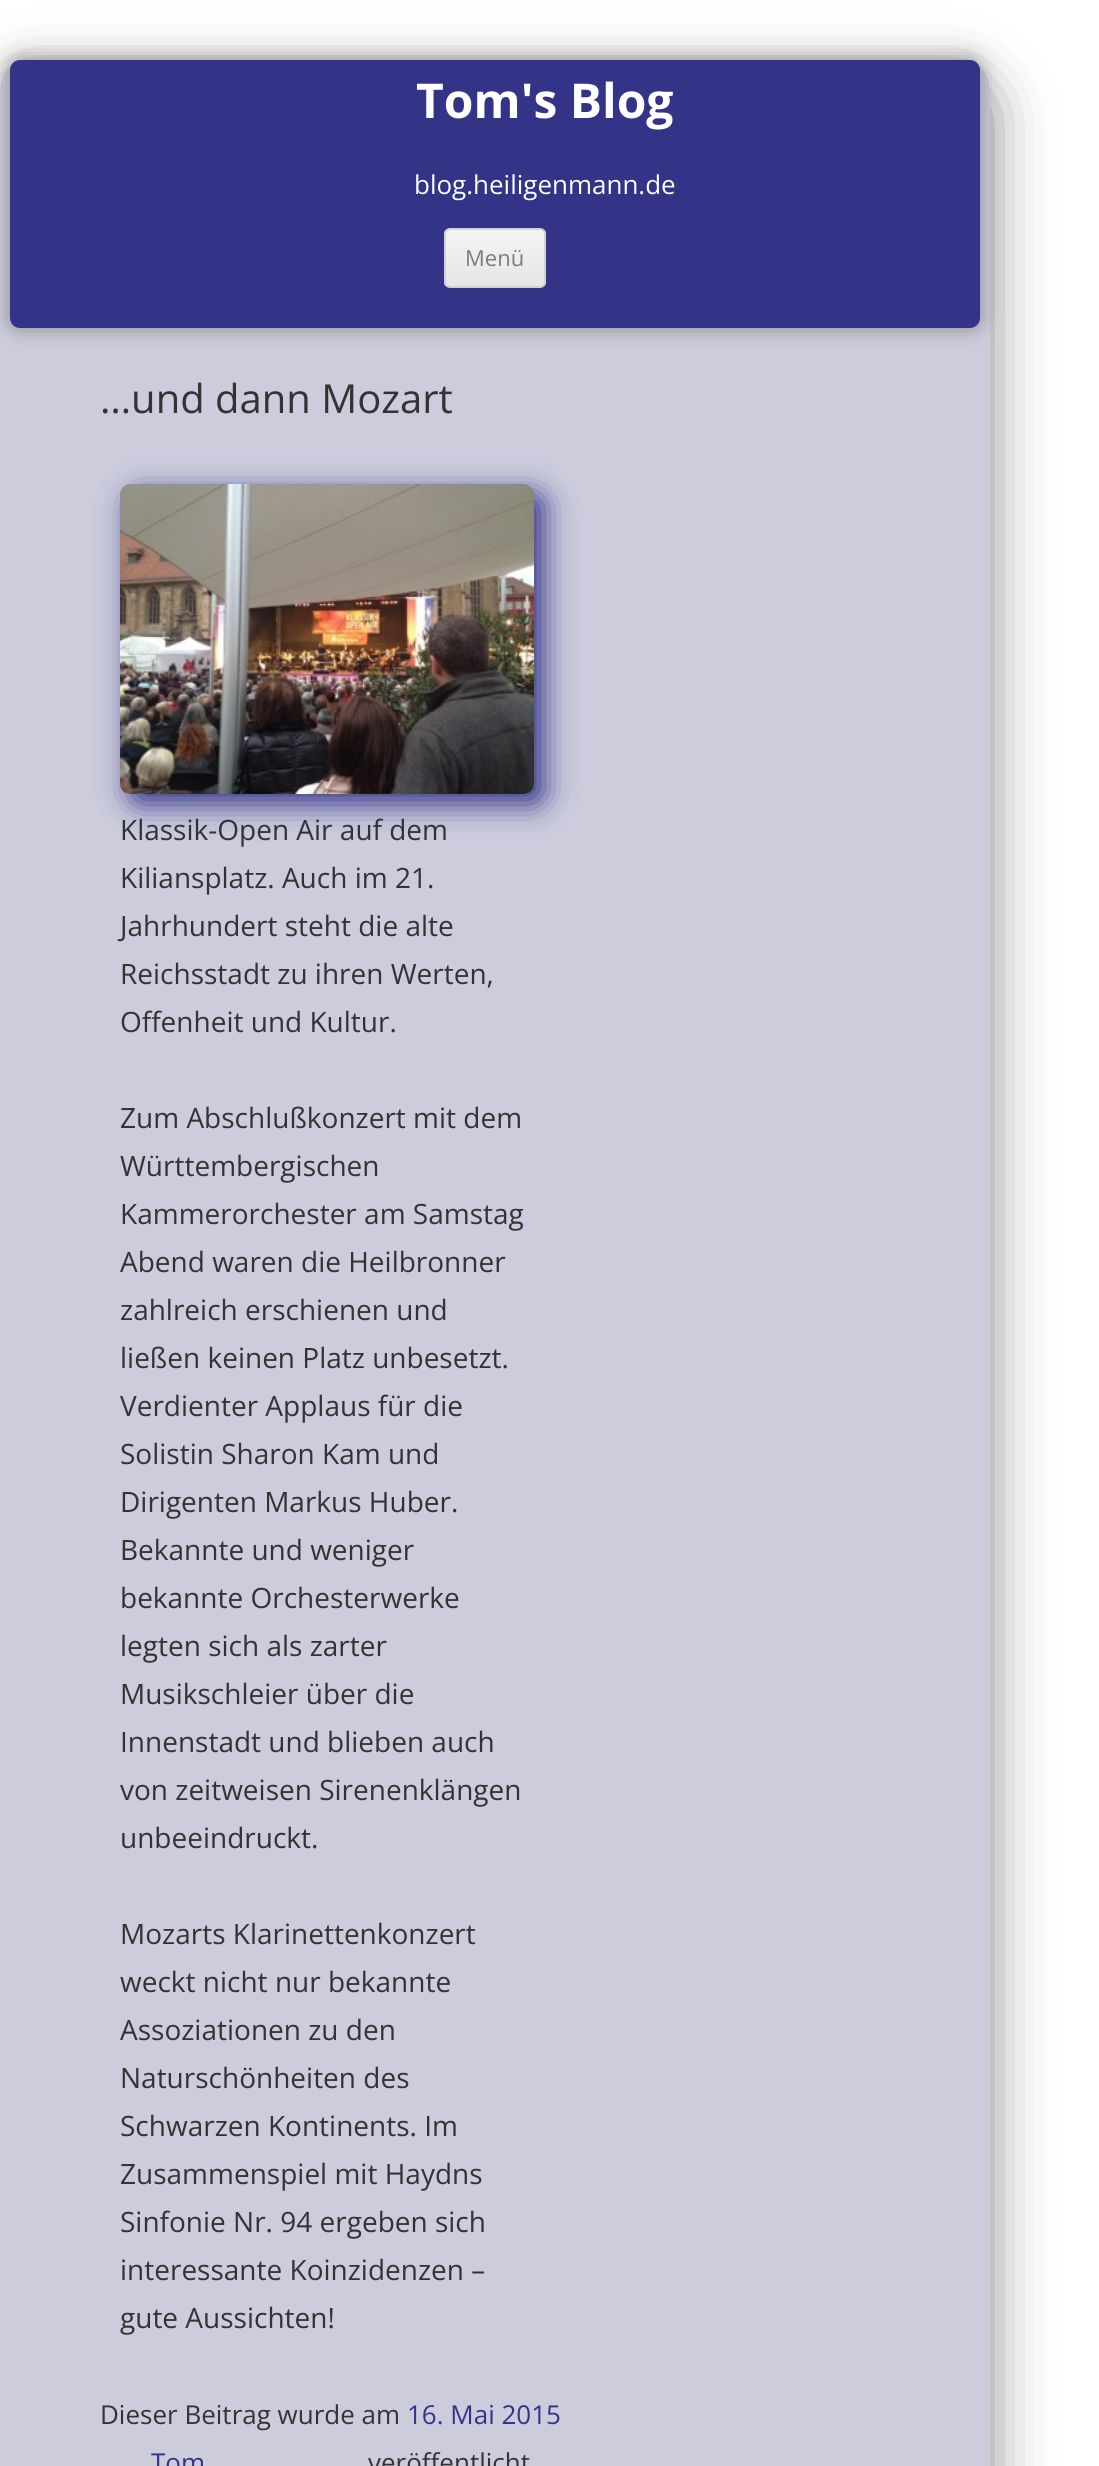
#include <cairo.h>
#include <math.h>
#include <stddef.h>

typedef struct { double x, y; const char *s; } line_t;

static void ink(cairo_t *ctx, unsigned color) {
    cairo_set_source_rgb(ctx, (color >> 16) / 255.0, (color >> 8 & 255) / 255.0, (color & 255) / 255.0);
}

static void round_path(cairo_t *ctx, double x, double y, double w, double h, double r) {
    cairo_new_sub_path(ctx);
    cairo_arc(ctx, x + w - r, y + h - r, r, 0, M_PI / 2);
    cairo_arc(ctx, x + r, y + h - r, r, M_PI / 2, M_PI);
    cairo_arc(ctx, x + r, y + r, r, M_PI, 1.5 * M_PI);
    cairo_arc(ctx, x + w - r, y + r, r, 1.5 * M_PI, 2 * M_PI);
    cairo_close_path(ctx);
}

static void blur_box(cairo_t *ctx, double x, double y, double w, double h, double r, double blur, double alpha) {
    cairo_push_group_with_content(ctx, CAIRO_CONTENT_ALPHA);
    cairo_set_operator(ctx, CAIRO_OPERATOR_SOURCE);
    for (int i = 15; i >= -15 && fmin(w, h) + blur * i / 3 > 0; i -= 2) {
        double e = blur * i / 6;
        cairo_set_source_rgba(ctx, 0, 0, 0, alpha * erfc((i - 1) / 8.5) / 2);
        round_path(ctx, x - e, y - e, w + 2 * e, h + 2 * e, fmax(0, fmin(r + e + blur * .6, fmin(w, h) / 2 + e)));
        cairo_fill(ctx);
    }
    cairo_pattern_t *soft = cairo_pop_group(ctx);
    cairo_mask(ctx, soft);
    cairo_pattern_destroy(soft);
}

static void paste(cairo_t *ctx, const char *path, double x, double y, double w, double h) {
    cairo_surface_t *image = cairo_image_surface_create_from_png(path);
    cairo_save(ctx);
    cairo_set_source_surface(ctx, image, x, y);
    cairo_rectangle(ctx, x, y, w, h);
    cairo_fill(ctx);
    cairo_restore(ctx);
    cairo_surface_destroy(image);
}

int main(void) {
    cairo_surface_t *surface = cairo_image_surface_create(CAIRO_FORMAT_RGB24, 1099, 2466);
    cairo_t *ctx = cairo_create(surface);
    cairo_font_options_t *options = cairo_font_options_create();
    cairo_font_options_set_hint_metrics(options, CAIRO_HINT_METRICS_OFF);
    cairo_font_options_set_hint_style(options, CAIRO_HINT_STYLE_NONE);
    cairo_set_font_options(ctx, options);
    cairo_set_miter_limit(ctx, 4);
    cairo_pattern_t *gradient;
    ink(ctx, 0xFFFFFF);
    cairo_paint(ctx);
    ink(ctx, 0x888888);
    blur_box(ctx, 0, 80, 990, 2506, 30, 30, 1);
    ink(ctx, 0xCCCCDD);
    round_path(ctx, 0, 60, 990, 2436, 30);
    cairo_fill(ctx);
    ink(ctx, 0x888888);
    blur_box(ctx, 10, 60, 970, 268, 10, 10, 1);
    ink(ctx, 0x333388);
    round_path(ctx, 10, 60, 970, 268, 10);
    cairo_fill(ctx);
    cairo_select_font_face(ctx, "Open Sans", CAIRO_FONT_SLANT_NORMAL, CAIRO_FONT_WEIGHT_BOLD);
    cairo_set_font_size(ctx, 48);
    ink(ctx, 0xFFFFFF);
    cairo_move_to(ctx, 416, 118);
    cairo_show_text(ctx, "Tom's Blog");
    cairo_select_font_face(ctx, "Open Sans", CAIRO_FONT_SLANT_NORMAL, CAIRO_FONT_WEIGHT_NORMAL);
    cairo_set_font_size(ctx, 26);
    cairo_move_to(ctx, 414, 194);
    cairo_show_text(ctx, "blog.heiligenmann.de");
    cairo_save(ctx);
    round_path(ctx, 444, 228, 102, 60, 6);
    cairo_clip(ctx);
    gradient = cairo_pattern_create_linear(495, 230, 495, 286);
    cairo_pattern_add_color_stop_rgba(gradient, 0, 0.957, 0.957, 0.957, 1);
    cairo_pattern_add_color_stop_rgba(gradient, 1, 0.902, 0.902, 0.902, 1);
    cairo_set_source(ctx, gradient);
    cairo_pattern_destroy(gradient);
    cairo_rectangle(ctx, 444, 230, 102, 56);
    cairo_fill(ctx);
    cairo_restore(ctx);
    round_path(ctx, 445, 229, 100, 58, 5);
    ink(ctx, 0xD2D2D2);
    cairo_stroke(ctx);
    cairo_set_font_size(ctx, 22);
    ink(ctx, 0x7C7C7C);
    cairo_move_to(ctx, 465, 266);
    cairo_show_text(ctx, "Menü");
    cairo_set_font_size(ctx, 40);
    ink(ctx, 0x333333);
    cairo_move_to(ctx, 100, 413);
    cairo_show_text(ctx, "…und dann Mozart");
    ink(ctx, 0x333388);
    blur_box(ctx, 130, 494, 414, 310, 10, 15, 1);
    paste(ctx, "media/1.png", 120, 484, 414, 310);
    cairo_set_font_size(ctx, 28);
    ink(ctx, 0x333333);
    {
        static const line_t items[] = {
            {120, 840, "Klassik-Open Air auf dem"},
            {120, 888, "Kiliansplatz. Auch im 21."},
            {120, 936, "Jahrhundert steht die alte"},
            {120, 984, "Reichsstadt zu ihren Werten,"},
            {120, 1032, "Offenheit und Kultur."},
            {120, 1128, "Zum Abschlußkonzert mit dem"},
            {120, 1176, "Württembergischen"},
            {120, 1224, "Kammerorchester am Samstag"},
            {120, 1272, "Abend waren die Heilbronner"},
            {120, 1320, "zahlreich erschienen und"},
            {120, 1368, "ließen keinen Platz unbesetzt."},
            {120, 1416, "Verdienter Applaus für die"},
            {120, 1464, "Solistin Sharon Kam und"},
            {120, 1512, "Dirigenten Markus Huber."},
            {120, 1560, "Bekannte und weniger"},
            {120, 1608, "bekannte Orchesterwerke"},
            {120, 1656, "legten sich als zarter"},
            {120, 1704, "Musikschleier über die"},
            {120, 1752, "Innenstadt und blieben auch"},
            {120, 1800, "von zeitweisen Sirenenklängen"},
            {120, 1848, "unbeeindruckt."},
            {120, 1944, "Mozarts Klarinettenkonzert"},
            {120, 1992, "weckt nicht nur bekannte"},
            {120, 2040, "Assoziationen zu den"},
            {120, 2088, "Naturschönheiten des"},
            {120, 2136, "Schwarzen Kontinents. Im"},
            {120, 2184, "Zusammenspiel mit Haydns"},
            {120, 2232, "Sinfonie Nr. 94 ergeben sich"},
            {120, 2280, "interessante Koinzidenzen –"},
            {120, 2328, "gute Aussichten!"},
        };
        for (size_t i = 0; i < sizeof items / sizeof *items; i++) {
            cairo_move_to(ctx, items[i].x, items[i].y);
            cairo_show_text(ctx, items[i].s);
        }
    }
    cairo_set_font_size(ctx, 26);
    cairo_move_to(ctx, 100, 2424);
    cairo_show_text(ctx, "Dieser Beitrag wurde am");
    ink(ctx, 0x333388);
    cairo_move_to(ctx, 407, 2424);
    cairo_show_text(ctx, "16. Mai 2015");
    cairo_move_to(ctx, 151, 2472);
    cairo_show_text(ctx, "Tom");
    ink(ctx, 0x333333);
    cairo_move_to(ctx, 368, 2472);
    cairo_show_text(ctx, "veröffentlicht");
    cairo_surface_write_to_png(surface, "image.png");
    cairo_font_options_destroy(options);
    cairo_destroy(ctx);
    cairo_surface_destroy(surface);
    return 0;
}
